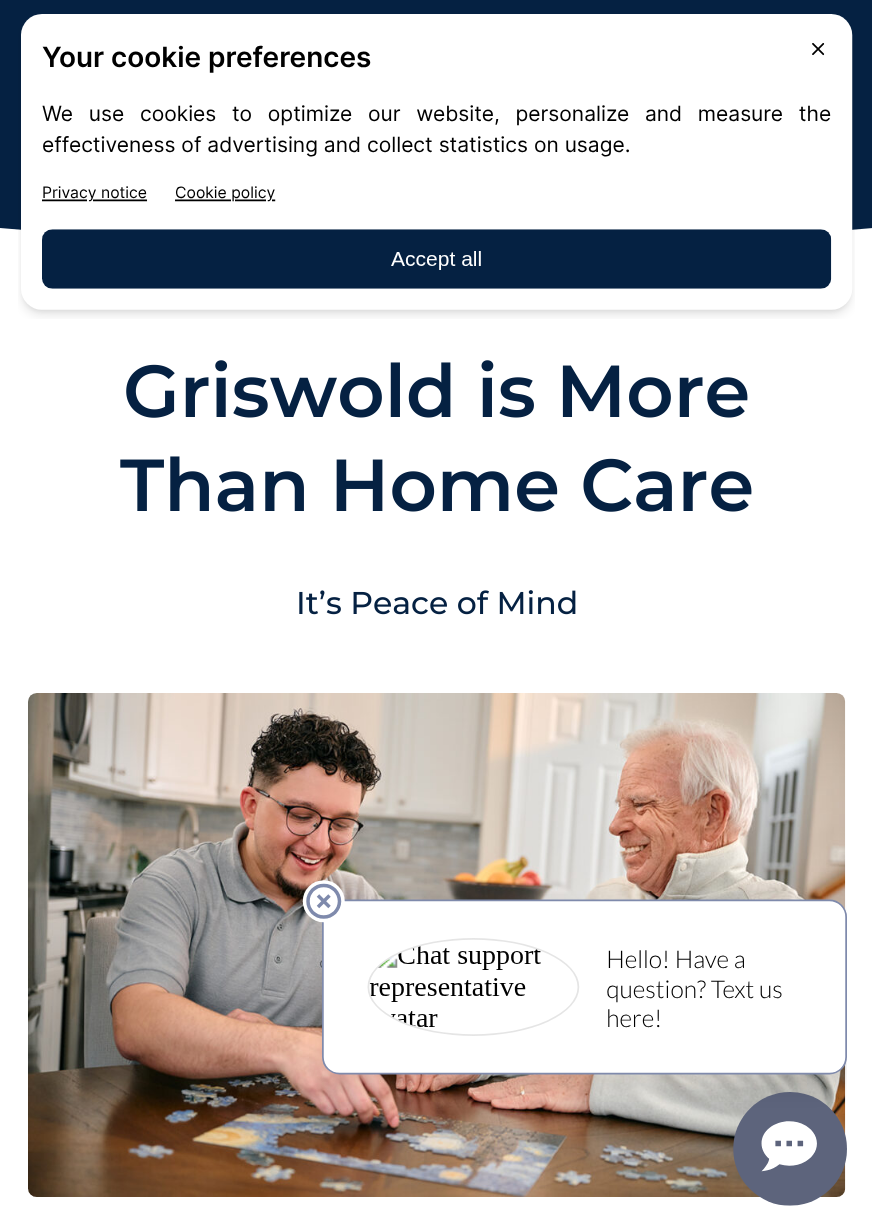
#include <cairo.h>
#include <math.h>
#include <stddef.h>


static void ink(cairo_t *ctx, unsigned color) {
    cairo_set_source_rgb(ctx, (color >> 16) / 255.0, (color >> 8 & 255) / 255.0, (color & 255) / 255.0);
}

static void paste(cairo_t *ctx, const char *path, double x, double y, double w, double h) {
    cairo_surface_t *image = cairo_image_surface_create_from_png(path);
    cairo_save(ctx);
    cairo_set_source_surface(ctx, image, x, y);
    cairo_rectangle(ctx, x, y, w, h);
    cairo_fill(ctx);
    cairo_restore(ctx);
    cairo_surface_destroy(image);
}

int main(void) {
    cairo_surface_t *surface = cairo_image_surface_create(CAIRO_FORMAT_RGB24, 872, 1231);
    cairo_t *ctx = cairo_create(surface);
    cairo_font_options_t *options = cairo_font_options_create();
    cairo_font_options_set_hint_metrics(options, CAIRO_HINT_METRICS_OFF);
    cairo_font_options_set_hint_style(options, CAIRO_HINT_STYLE_NONE);
    cairo_set_font_options(ctx, options);
    cairo_set_miter_limit(ctx, 4);
    ink(ctx, 0xFFFFFF);
    cairo_paint(ctx);
    ink(ctx, 0x052142);
    cairo_new_path(ctx);
    cairo_move_to(ctx, 0, 0);
    cairo_line_to(ctx, 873, 0);
    cairo_line_to(ctx, 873, 228);
    cairo_curve_to(ctx, 739, 240, 591, 247, 437, 247);
    cairo_curve_to(ctx, 282, 247, 134, 240, 0, 228);
    cairo_close_path(ctx);
    cairo_fill(ctx);
    paste(ctx, "media/1.png", 18, 14, 837, 305);
    cairo_select_font_face(ctx, "Montserrat SemiBold", CAIRO_FONT_SLANT_NORMAL, CAIRO_FONT_WEIGHT_NORMAL);
    cairo_set_font_size(ctx, 73.5);
    cairo_move_to(ctx, 123, 417);
    cairo_show_text(ctx, "Griswold is More");
    cairo_move_to(ctx, 120, 511);
    cairo_show_text(ctx, "Than Home Care");
    cairo_select_font_face(ctx, "Montserrat Medium", CAIRO_FONT_SLANT_NORMAL, CAIRO_FONT_WEIGHT_NORMAL);
    cairo_set_font_size(ctx, 31.5);
    cairo_move_to(ctx, 296, 614);
    cairo_show_text(ctx, "It’s Peace of Mind");
    paste(ctx, "media/2.png", 28, 693, 818, 504);
    paste(ctx, "media/3.png", 302, 880, 545, 326);
    cairo_surface_write_to_png(surface, "image.png");
    cairo_font_options_destroy(options);
    cairo_destroy(ctx);
    cairo_surface_destroy(surface);
    return 0;
}
